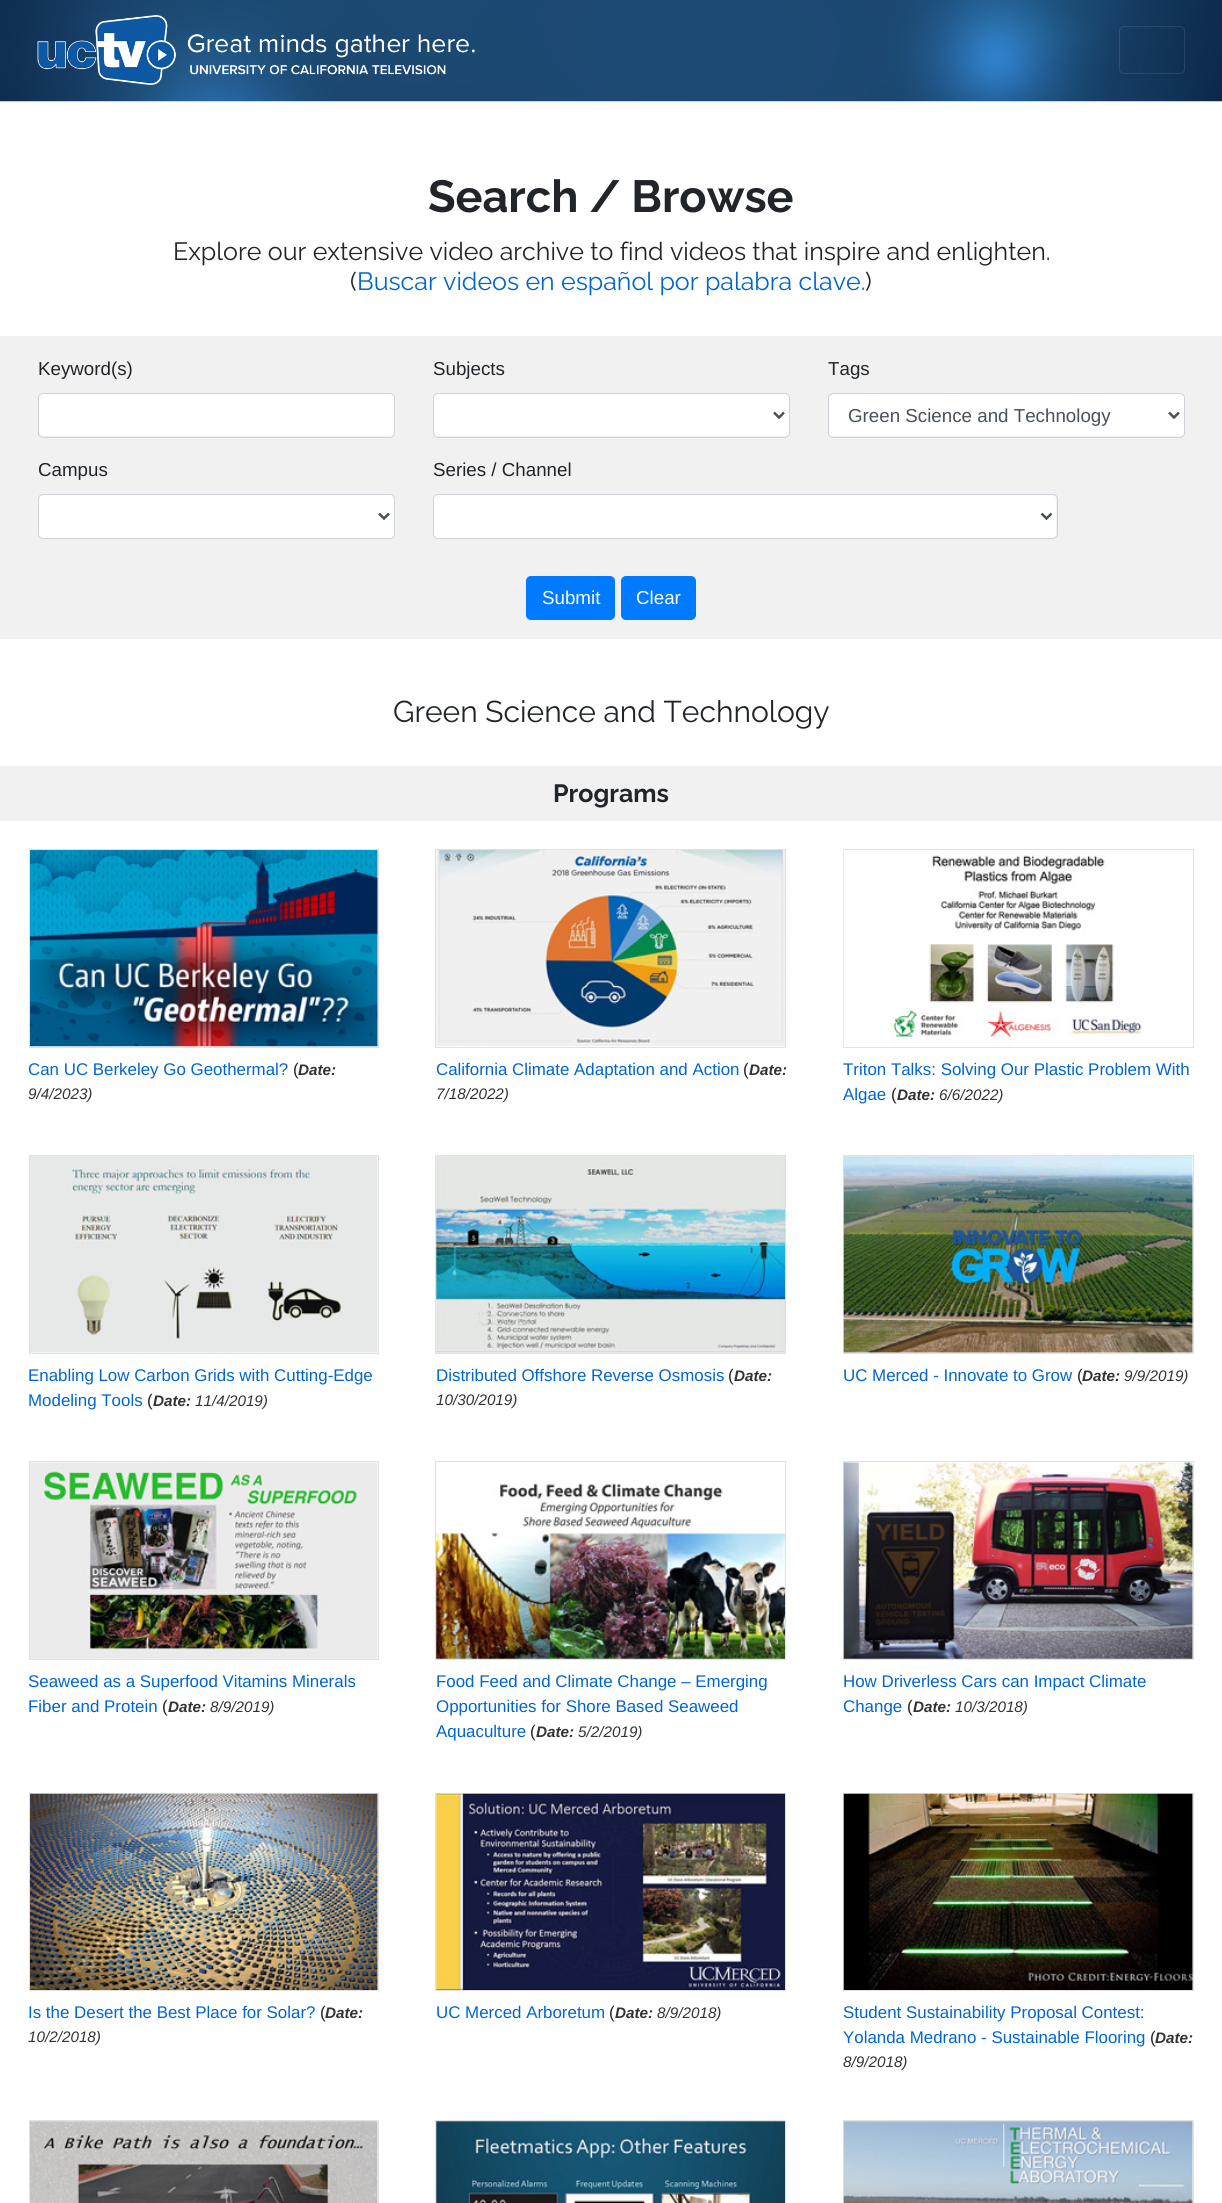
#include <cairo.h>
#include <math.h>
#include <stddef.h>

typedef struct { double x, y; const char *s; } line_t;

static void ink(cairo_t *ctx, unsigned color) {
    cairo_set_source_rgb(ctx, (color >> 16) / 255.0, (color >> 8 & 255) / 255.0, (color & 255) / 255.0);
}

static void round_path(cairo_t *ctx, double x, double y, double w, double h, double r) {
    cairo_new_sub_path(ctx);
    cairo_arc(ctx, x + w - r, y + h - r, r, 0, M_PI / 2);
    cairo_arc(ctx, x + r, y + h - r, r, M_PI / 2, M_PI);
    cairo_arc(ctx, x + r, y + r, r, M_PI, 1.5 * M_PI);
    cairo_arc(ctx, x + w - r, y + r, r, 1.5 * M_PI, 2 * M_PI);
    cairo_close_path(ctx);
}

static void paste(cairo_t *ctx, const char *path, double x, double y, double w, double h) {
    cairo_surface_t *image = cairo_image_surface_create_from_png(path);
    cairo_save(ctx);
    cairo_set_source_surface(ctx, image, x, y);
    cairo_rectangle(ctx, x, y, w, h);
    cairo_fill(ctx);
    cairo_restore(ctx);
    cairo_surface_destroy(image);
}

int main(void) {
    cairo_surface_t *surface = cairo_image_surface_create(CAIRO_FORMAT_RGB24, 1222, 2203);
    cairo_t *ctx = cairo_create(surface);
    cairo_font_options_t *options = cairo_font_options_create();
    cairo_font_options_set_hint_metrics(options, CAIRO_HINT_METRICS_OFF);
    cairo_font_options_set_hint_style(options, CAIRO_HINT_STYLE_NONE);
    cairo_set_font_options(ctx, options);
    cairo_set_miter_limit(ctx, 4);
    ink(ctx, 0xFFFFFF);
    cairo_paint(ctx);
    paste(ctx, "media/1.png", 0, 0, 1222, 102);
    paste(ctx, "media/2.png", 37, 15, 438, 70);
    round_path(ctx, 1119.5, 26.5, 65, 47, 4.5);
    cairo_set_source_rgba(ctx, 1, 1, 1, 0.1);
    cairo_set_line_width(ctx, 1);
    cairo_stroke(ctx);
    cairo_select_font_face(ctx, "Raleway", CAIRO_FONT_SLANT_NORMAL, CAIRO_FONT_WEIGHT_BOLD);
    cairo_set_font_size(ctx, 45);
    ink(ctx, 0x212529);
    cairo_move_to(ctx, 428, 212);
    cairo_show_text(ctx, "Search / Browse");
    cairo_select_font_face(ctx, "Raleway", CAIRO_FONT_SLANT_NORMAL, CAIRO_FONT_WEIGHT_NORMAL);
    cairo_set_font_size(ctx, 25);
    cairo_move_to(ctx, 173, 260);
    cairo_show_text(ctx, "Explore our extensive video archive to find videos that inspire and enlighten.");
    cairo_move_to(ctx, 350, 290);
    cairo_show_text(ctx, "(");
    ink(ctx, 0x0066CC);
    cairo_move_to(ctx, 357, 290);
    cairo_show_text(ctx, "Buscar videos en español por palabra clave.");
    ink(ctx, 0x212529);
    cairo_move_to(ctx, 865, 290);
    cairo_show_text(ctx, ")");
    ink(ctx, 0xF1F1F1);
    cairo_rectangle(ctx, 0, 336, 1222, 303);
    cairo_fill(ctx);
    cairo_select_font_face(ctx, "Liberation Sans", CAIRO_FONT_SLANT_NORMAL, CAIRO_FONT_WEIGHT_NORMAL);
    cairo_set_font_size(ctx, 18.75);
    ink(ctx, 0x212529);
    cairo_move_to(ctx, 38, 375);
    cairo_show_text(ctx, "Keyword(s)");
    ink(ctx, 0xFFFFFF);
    round_path(ctx, 39, 394, 355, 42, 4);
    cairo_fill(ctx);
    round_path(ctx, 38.5, 393.5, 356, 44, 4.5);
    ink(ctx, 0xCED4DA);
    cairo_stroke(ctx);
    ink(ctx, 0x212529);
    cairo_move_to(ctx, 433, 375);
    cairo_show_text(ctx, "Subjects");
    ink(ctx, 0xFFFFFF);
    round_path(ctx, 434, 394, 355, 42, 4);
    cairo_fill(ctx);
    round_path(ctx, 433.5, 393.5, 356, 44, 4.5);
    ink(ctx, 0xCED4DA);
    cairo_stroke(ctx);
    cairo_new_path(ctx);
    cairo_move_to(ctx, 774, 412.5);
    cairo_line_to(ctx, 779, 417.5);
    cairo_line_to(ctx, 784, 412.5);
    ink(ctx, 0x495057);
    cairo_set_line_width(ctx, 2.5);
    cairo_stroke(ctx);
    ink(ctx, 0x212529);
    cairo_move_to(ctx, 828, 375);
    cairo_show_text(ctx, "Tags");
    ink(ctx, 0xFFFFFF);
    round_path(ctx, 829, 394, 355, 42, 4);
    cairo_fill(ctx);
    round_path(ctx, 828.5, 393.5, 356, 44, 4.5);
    ink(ctx, 0xCED4DA);
    cairo_set_line_width(ctx, 1);
    cairo_stroke(ctx);
    cairo_new_path(ctx);
    cairo_move_to(ctx, 1169, 412.5);
    cairo_line_to(ctx, 1174, 417.5);
    cairo_line_to(ctx, 1179, 412.5);
    ink(ctx, 0x495057);
    cairo_set_line_width(ctx, 2.5);
    cairo_stroke(ctx);
    cairo_move_to(ctx, 848, 422);
    cairo_show_text(ctx, "Green Science and Technology");
    ink(ctx, 0x212529);
    cairo_move_to(ctx, 38, 476);
    cairo_show_text(ctx, "Campus");
    ink(ctx, 0xFFFFFF);
    round_path(ctx, 38.5, 494.5, 356, 44, 4.5);
    cairo_fill_preserve(ctx);
    ink(ctx, 0xCED4DA);
    cairo_set_line_width(ctx, 1);
    cairo_stroke(ctx);
    cairo_new_path(ctx);
    cairo_move_to(ctx, 379, 513.5);
    cairo_line_to(ctx, 384, 518.5);
    cairo_line_to(ctx, 389, 513.5);
    ink(ctx, 0x495057);
    cairo_set_line_width(ctx, 2.5);
    cairo_stroke(ctx);
    ink(ctx, 0x212529);
    cairo_move_to(ctx, 433, 476);
    cairo_show_text(ctx, "Series / Channel");
    ink(ctx, 0xFFFFFF);
    round_path(ctx, 434, 495, 622, 43, 4);
    cairo_fill(ctx);
    round_path(ctx, 433.5, 494.5, 624, 44, 4.5);
    ink(ctx, 0xCED4DA);
    cairo_set_line_width(ctx, 1);
    cairo_stroke(ctx);
    cairo_new_path(ctx);
    cairo_move_to(ctx, 1041.5, 513.5);
    cairo_line_to(ctx, 1046.5, 518.5);
    cairo_line_to(ctx, 1051.5, 513.5);
    ink(ctx, 0x495057);
    cairo_set_line_width(ctx, 2.5);
    cairo_stroke(ctx);
    ink(ctx, 0x007BFF);
    round_path(ctx, 526.5, 576.5, 88, 43, 4.5);
    cairo_fill_preserve(ctx);
    cairo_set_line_width(ctx, 1);
    cairo_stroke(ctx);
    ink(ctx, 0xFFFFFF);
    cairo_move_to(ctx, 542, 604);
    cairo_show_text(ctx, "Submit");
    ink(ctx, 0x007BFF);
    round_path(ctx, 621.5, 576.5, 74, 43, 4.5);
    cairo_fill_preserve(ctx);
    cairo_stroke(ctx);
    ink(ctx, 0xFFFFFF);
    cairo_move_to(ctx, 636, 604);
    cairo_show_text(ctx, "Clear");
    cairo_select_font_face(ctx, "Raleway", CAIRO_FONT_SLANT_NORMAL, CAIRO_FONT_WEIGHT_NORMAL);
    cairo_set_font_size(ctx, 30);
    ink(ctx, 0x212529);
    cairo_move_to(ctx, 393, 722);
    cairo_show_text(ctx, "Green Science and Technology");
    ink(ctx, 0xF1F1F1);
    cairo_rectangle(ctx, 0, 766, 1222, 55);
    cairo_fill(ctx);
    cairo_select_font_face(ctx, "Raleway", CAIRO_FONT_SLANT_NORMAL, CAIRO_FONT_WEIGHT_BOLD);
    cairo_set_font_size(ctx, 25);
    ink(ctx, 0x212529);
    cairo_move_to(ctx, 553, 802);
    cairo_show_text(ctx, "Programs");
    cairo_rectangle(ctx, 29.5, 849.5, 349, 198);
    ink(ctx, 0xE1E1E1);
    cairo_stroke(ctx);
    paste(ctx, "media/3.png", 30, 850, 348, 197);
    cairo_select_font_face(ctx, "Liberation Sans", CAIRO_FONT_SLANT_NORMAL, CAIRO_FONT_WEIGHT_NORMAL);
    cairo_set_font_size(ctx, 16.9);
    ink(ctx, 0x0066CC);
    cairo_move_to(ctx, 28, 1075);
    cairo_show_text(ctx, "Can UC Berkeley Go Geothermal?");
    ink(ctx, 0x212529);
    cairo_move_to(ctx, 293, 1075);
    cairo_show_text(ctx, "(");
    cairo_select_font_face(ctx, "Liberation Sans", CAIRO_FONT_SLANT_ITALIC, CAIRO_FONT_WEIGHT_BOLD);
    cairo_set_font_size(ctx, 15.25);
    ink(ctx, 0x333333);
    cairo_move_to(ctx, 298, 1075);
    cairo_show_text(ctx, "Date:");
    cairo_select_font_face(ctx, "Liberation Sans", CAIRO_FONT_SLANT_ITALIC, CAIRO_FONT_WEIGHT_NORMAL);
    cairo_move_to(ctx, 28, 1099);
    cairo_show_text(ctx, "9/4/2023)");
    cairo_rectangle(ctx, 435.5, 849.5, 350, 198);
    ink(ctx, 0xE1E1E1);
    cairo_stroke(ctx);
    paste(ctx, "media/4.png", 436, 850, 349, 197);
    cairo_select_font_face(ctx, "Liberation Sans", CAIRO_FONT_SLANT_NORMAL, CAIRO_FONT_WEIGHT_NORMAL);
    cairo_set_font_size(ctx, 16.9);
    ink(ctx, 0x0066CC);
    cairo_move_to(ctx, 436, 1075);
    cairo_show_text(ctx, "California Climate Adaptation and Action");
    ink(ctx, 0x212529);
    cairo_move_to(ctx, 743, 1075);
    cairo_show_text(ctx, "(");
    cairo_select_font_face(ctx, "Liberation Sans", CAIRO_FONT_SLANT_ITALIC, CAIRO_FONT_WEIGHT_BOLD);
    cairo_set_font_size(ctx, 15.25);
    ink(ctx, 0x333333);
    cairo_move_to(ctx, 749, 1075);
    cairo_show_text(ctx, "Date:");
    cairo_select_font_face(ctx, "Liberation Sans", CAIRO_FONT_SLANT_ITALIC, CAIRO_FONT_WEIGHT_NORMAL);
    cairo_move_to(ctx, 436, 1099);
    cairo_show_text(ctx, "7/18/2022)");
    cairo_rectangle(ctx, 843.5, 849.5, 350, 198);
    ink(ctx, 0xE1E1E1);
    cairo_stroke(ctx);
    paste(ctx, "media/5.png", 843, 850, 299, 196);
    cairo_select_font_face(ctx, "Liberation Sans", CAIRO_FONT_SLANT_NORMAL, CAIRO_FONT_WEIGHT_NORMAL);
    cairo_set_font_size(ctx, 16.9);
    ink(ctx, 0x0066CC);
    cairo_move_to(ctx, 843, 1075);
    cairo_show_text(ctx, "Triton Talks: Solving Our Plastic Problem With");
    cairo_move_to(ctx, 843, 1100);
    cairo_show_text(ctx, "Algae");
    ink(ctx, 0x212529);
    cairo_move_to(ctx, 891, 1100);
    cairo_show_text(ctx, "(");
    cairo_select_font_face(ctx, "Liberation Sans", CAIRO_FONT_SLANT_ITALIC, CAIRO_FONT_WEIGHT_BOLD);
    cairo_set_font_size(ctx, 15.25);
    ink(ctx, 0x333333);
    cairo_move_to(ctx, 897, 1100);
    cairo_show_text(ctx, "Date:");
    cairo_select_font_face(ctx, "Liberation Sans", CAIRO_FONT_SLANT_ITALIC, CAIRO_FONT_WEIGHT_NORMAL);
    cairo_move_to(ctx, 939, 1100);
    cairo_show_text(ctx, "6/6/2022)");
    cairo_rectangle(ctx, 29.5, 1155.5, 349, 198);
    ink(ctx, 0xE1E1E1);
    cairo_stroke(ctx);
    paste(ctx, "media/6.png", 30, 1156, 348, 197);
    cairo_select_font_face(ctx, "Liberation Sans", CAIRO_FONT_SLANT_NORMAL, CAIRO_FONT_WEIGHT_NORMAL);
    cairo_set_font_size(ctx, 16.9);
    ink(ctx, 0x0066CC);
    cairo_move_to(ctx, 28, 1381);
    cairo_show_text(ctx, "Enabling Low Carbon Grids with Cutting-Edge");
    cairo_move_to(ctx, 28, 1406);
    cairo_show_text(ctx, "Modeling Tools");
    ink(ctx, 0x212529);
    cairo_move_to(ctx, 147, 1406);
    cairo_show_text(ctx, "(");
    cairo_select_font_face(ctx, "Liberation Sans", CAIRO_FONT_SLANT_ITALIC, CAIRO_FONT_WEIGHT_BOLD);
    cairo_set_font_size(ctx, 15.25);
    ink(ctx, 0x333333);
    cairo_move_to(ctx, 153, 1406);
    cairo_show_text(ctx, "Date:");
    cairo_select_font_face(ctx, "Liberation Sans", CAIRO_FONT_SLANT_ITALIC, CAIRO_FONT_WEIGHT_NORMAL);
    cairo_move_to(ctx, 195, 1406);
    cairo_show_text(ctx, "11/4/2019)");
    cairo_rectangle(ctx, 435.5, 1155.5, 350, 198);
    ink(ctx, 0xE1E1E1);
    cairo_stroke(ctx);
    paste(ctx, "media/7.png", 436, 1156, 349, 197);
    cairo_select_font_face(ctx, "Liberation Sans", CAIRO_FONT_SLANT_NORMAL, CAIRO_FONT_WEIGHT_NORMAL);
    cairo_set_font_size(ctx, 16.9);
    ink(ctx, 0x0066CC);
    cairo_move_to(ctx, 436, 1381);
    cairo_show_text(ctx, "Distributed Offshore Reverse Osmosis");
    ink(ctx, 0x212529);
    cairo_move_to(ctx, 728, 1381);
    cairo_show_text(ctx, "(");
    cairo_select_font_face(ctx, "Liberation Sans", CAIRO_FONT_SLANT_ITALIC, CAIRO_FONT_WEIGHT_BOLD);
    cairo_set_font_size(ctx, 15.25);
    ink(ctx, 0x333333);
    cairo_move_to(ctx, 734, 1381);
    cairo_show_text(ctx, "Date:");
    cairo_select_font_face(ctx, "Liberation Sans", CAIRO_FONT_SLANT_ITALIC, CAIRO_FONT_WEIGHT_NORMAL);
    cairo_move_to(ctx, 436, 1405);
    cairo_show_text(ctx, "10/30/2019)");
    cairo_rectangle(ctx, 843.5, 1155.5, 350, 198);
    ink(ctx, 0xE1E1E1);
    cairo_stroke(ctx);
    paste(ctx, "media/8.png", 843, 1156, 350, 197);
    cairo_select_font_face(ctx, "Liberation Sans", CAIRO_FONT_SLANT_NORMAL, CAIRO_FONT_WEIGHT_NORMAL);
    cairo_set_font_size(ctx, 16.9);
    ink(ctx, 0x0066CC);
    cairo_move_to(ctx, 843, 1381);
    cairo_show_text(ctx, "UC Merced - Innovate to Grow");
    ink(ctx, 0x212529);
    cairo_move_to(ctx, 1077, 1381);
    cairo_show_text(ctx, "(");
    cairo_select_font_face(ctx, "Liberation Sans", CAIRO_FONT_SLANT_ITALIC, CAIRO_FONT_WEIGHT_BOLD);
    cairo_set_font_size(ctx, 15.25);
    ink(ctx, 0x333333);
    cairo_move_to(ctx, 1082, 1381);
    cairo_show_text(ctx, "Date:");
    cairo_select_font_face(ctx, "Liberation Sans", CAIRO_FONT_SLANT_ITALIC, CAIRO_FONT_WEIGHT_NORMAL);
    cairo_move_to(ctx, 1124, 1381);
    cairo_show_text(ctx, "9/9/2019)");
    cairo_rectangle(ctx, 29.5, 1461.5, 349, 198);
    ink(ctx, 0xE1E1E1);
    cairo_stroke(ctx);
    paste(ctx, "media/9.png", 30, 1462, 348, 197);
    cairo_select_font_face(ctx, "Liberation Sans", CAIRO_FONT_SLANT_NORMAL, CAIRO_FONT_WEIGHT_NORMAL);
    cairo_set_font_size(ctx, 16.9);
    ink(ctx, 0x0066CC);
    cairo_move_to(ctx, 28, 1687);
    cairo_show_text(ctx, "Seaweed as a Superfood Vitamins Minerals");
    cairo_move_to(ctx, 28, 1712);
    cairo_show_text(ctx, "Fiber and Protein");
    ink(ctx, 0x212529);
    cairo_move_to(ctx, 162, 1712);
    cairo_show_text(ctx, "(");
    cairo_select_font_face(ctx, "Liberation Sans", CAIRO_FONT_SLANT_ITALIC, CAIRO_FONT_WEIGHT_BOLD);
    cairo_set_font_size(ctx, 15.25);
    ink(ctx, 0x333333);
    cairo_move_to(ctx, 168, 1712);
    cairo_show_text(ctx, "Date:");
    cairo_select_font_face(ctx, "Liberation Sans", CAIRO_FONT_SLANT_ITALIC, CAIRO_FONT_WEIGHT_NORMAL);
    cairo_move_to(ctx, 210, 1712);
    cairo_show_text(ctx, "8/9/2019)");
    cairo_rectangle(ctx, 435.5, 1461.5, 350, 198);
    ink(ctx, 0xE1E1E1);
    cairo_stroke(ctx);
    paste(ctx, "media/10.png", 436, 1483, 349, 176);
    cairo_select_font_face(ctx, "Liberation Sans", CAIRO_FONT_SLANT_NORMAL, CAIRO_FONT_WEIGHT_NORMAL);
    cairo_set_font_size(ctx, 16.9);
    ink(ctx, 0x0066CC);
    {
        static const line_t items[] = {
            {436, 1687, "Food Feed and Climate Change – Emerging"},
            {436, 1712, "Opportunities for Shore Based Seaweed"},
            {436, 1737, "Aquaculture"},
        };
        for (size_t i = 0; i < sizeof items / sizeof *items; i++) {
            cairo_move_to(ctx, items[i].x, items[i].y);
            cairo_show_text(ctx, items[i].s);
        }
    }
    ink(ctx, 0x212529);
    cairo_move_to(ctx, 530, 1737);
    cairo_show_text(ctx, "(");
    cairo_select_font_face(ctx, "Liberation Sans", CAIRO_FONT_SLANT_ITALIC, CAIRO_FONT_WEIGHT_BOLD);
    cairo_set_font_size(ctx, 15.25);
    ink(ctx, 0x333333);
    cairo_move_to(ctx, 536, 1737);
    cairo_show_text(ctx, "Date:");
    cairo_select_font_face(ctx, "Liberation Sans", CAIRO_FONT_SLANT_ITALIC, CAIRO_FONT_WEIGHT_NORMAL);
    cairo_move_to(ctx, 578, 1737);
    cairo_show_text(ctx, "5/2/2019)");
    cairo_rectangle(ctx, 843.5, 1461.5, 350, 198);
    ink(ctx, 0xE1E1E1);
    cairo_stroke(ctx);
    paste(ctx, "media/11.png", 843, 1462, 350, 197);
    cairo_select_font_face(ctx, "Liberation Sans", CAIRO_FONT_SLANT_NORMAL, CAIRO_FONT_WEIGHT_NORMAL);
    cairo_set_font_size(ctx, 16.9);
    ink(ctx, 0x0066CC);
    cairo_move_to(ctx, 843, 1687);
    cairo_show_text(ctx, "How Driverless Cars can Impact Climate");
    cairo_move_to(ctx, 843, 1712);
    cairo_show_text(ctx, "Change");
    ink(ctx, 0x212529);
    cairo_move_to(ctx, 907, 1712);
    cairo_show_text(ctx, "(");
    cairo_select_font_face(ctx, "Liberation Sans", CAIRO_FONT_SLANT_ITALIC, CAIRO_FONT_WEIGHT_BOLD);
    cairo_set_font_size(ctx, 15.25);
    ink(ctx, 0x333333);
    cairo_move_to(ctx, 913, 1712);
    cairo_show_text(ctx, "Date:");
    cairo_select_font_face(ctx, "Liberation Sans", CAIRO_FONT_SLANT_ITALIC, CAIRO_FONT_WEIGHT_NORMAL);
    cairo_move_to(ctx, 955, 1712);
    cairo_show_text(ctx, "10/3/2018)");
    cairo_rectangle(ctx, 29.5, 1793.5, 349, 197);
    ink(ctx, 0xE1E1E1);
    cairo_stroke(ctx);
    paste(ctx, "media/12.png", 30, 1793, 348, 197);
    cairo_select_font_face(ctx, "Liberation Sans", CAIRO_FONT_SLANT_NORMAL, CAIRO_FONT_WEIGHT_NORMAL);
    cairo_set_font_size(ctx, 16.9);
    ink(ctx, 0x0066CC);
    cairo_move_to(ctx, 28, 2018);
    cairo_show_text(ctx, "Is the Desert the Best Place for Solar?");
    ink(ctx, 0x212529);
    cairo_move_to(ctx, 320, 2018);
    cairo_show_text(ctx, "(");
    cairo_select_font_face(ctx, "Liberation Sans", CAIRO_FONT_SLANT_ITALIC, CAIRO_FONT_WEIGHT_BOLD);
    cairo_set_font_size(ctx, 15.25);
    ink(ctx, 0x333333);
    cairo_move_to(ctx, 325, 2018);
    cairo_show_text(ctx, "Date:");
    cairo_select_font_face(ctx, "Liberation Sans", CAIRO_FONT_SLANT_ITALIC, CAIRO_FONT_WEIGHT_NORMAL);
    cairo_move_to(ctx, 28, 2042);
    cairo_show_text(ctx, "10/2/2018)");
    cairo_rectangle(ctx, 435.5, 1793.5, 350, 197);
    ink(ctx, 0xE1E1E1);
    cairo_stroke(ctx);
    paste(ctx, "media/13.png", 436, 1793, 349, 197);
    cairo_select_font_face(ctx, "Liberation Sans", CAIRO_FONT_SLANT_NORMAL, CAIRO_FONT_WEIGHT_NORMAL);
    cairo_set_font_size(ctx, 16.9);
    ink(ctx, 0x0066CC);
    cairo_move_to(ctx, 436, 2018);
    cairo_show_text(ctx, "UC Merced Arboretum");
    ink(ctx, 0x212529);
    cairo_move_to(ctx, 609, 2018);
    cairo_show_text(ctx, "(");
    cairo_select_font_face(ctx, "Liberation Sans", CAIRO_FONT_SLANT_ITALIC, CAIRO_FONT_WEIGHT_BOLD);
    cairo_set_font_size(ctx, 15.25);
    ink(ctx, 0x333333);
    cairo_move_to(ctx, 615, 2018);
    cairo_show_text(ctx, "Date:");
    cairo_select_font_face(ctx, "Liberation Sans", CAIRO_FONT_SLANT_ITALIC, CAIRO_FONT_WEIGHT_NORMAL);
    cairo_move_to(ctx, 657, 2018);
    cairo_show_text(ctx, "8/9/2018)");
    cairo_rectangle(ctx, 843.5, 1793.5, 350, 197);
    ink(ctx, 0xE1E1E1);
    cairo_stroke(ctx);
    paste(ctx, "media/14.png", 843, 1793, 350, 197);
    cairo_select_font_face(ctx, "Liberation Sans", CAIRO_FONT_SLANT_NORMAL, CAIRO_FONT_WEIGHT_NORMAL);
    cairo_set_font_size(ctx, 16.9);
    ink(ctx, 0x0066CC);
    cairo_move_to(ctx, 843, 2018);
    cairo_show_text(ctx, "Student Sustainability Proposal Contest:");
    cairo_move_to(ctx, 843, 2043);
    cairo_show_text(ctx, "Yolanda Medrano - Sustainable Flooring");
    ink(ctx, 0x212529);
    cairo_move_to(ctx, 1150, 2043);
    cairo_show_text(ctx, "(");
    cairo_select_font_face(ctx, "Liberation Sans", CAIRO_FONT_SLANT_ITALIC, CAIRO_FONT_WEIGHT_BOLD);
    cairo_set_font_size(ctx, 15.25);
    ink(ctx, 0x333333);
    cairo_move_to(ctx, 1155, 2043);
    cairo_show_text(ctx, "Date:");
    cairo_select_font_face(ctx, "Liberation Sans", CAIRO_FONT_SLANT_ITALIC, CAIRO_FONT_WEIGHT_NORMAL);
    cairo_move_to(ctx, 843, 2067);
    cairo_show_text(ctx, "8/9/2018)");
    cairo_rectangle(ctx, 29.5, 2120.5, 349, 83);
    ink(ctx, 0xE1E1E1);
    cairo_stroke(ctx);
    paste(ctx, "media/15.png", 30, 2121, 348, 82);
    cairo_rectangle(ctx, 435.5, 2120.5, 350, 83);
    cairo_stroke(ctx);
    paste(ctx, "media/16.png", 436, 2121, 349, 82);
    cairo_rectangle(ctx, 843.5, 2120.5, 350, 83);
    cairo_stroke(ctx);
    paste(ctx, "media/17.png", 843, 2121, 350, 82);
    cairo_surface_write_to_png(surface, "image.png");
    cairo_font_options_destroy(options);
    cairo_destroy(ctx);
    cairo_surface_destroy(surface);
    return 0;
}
